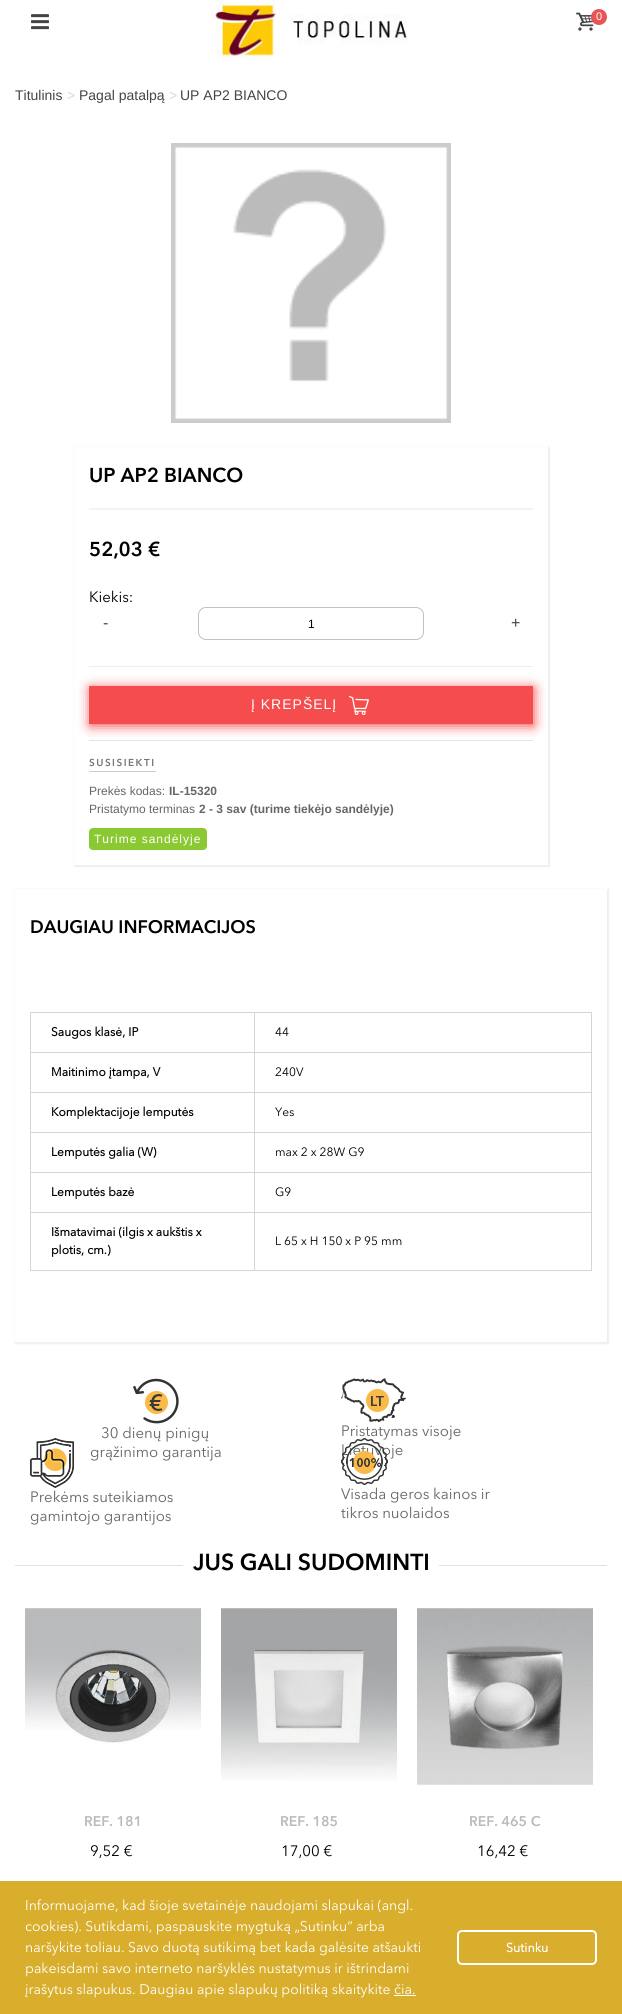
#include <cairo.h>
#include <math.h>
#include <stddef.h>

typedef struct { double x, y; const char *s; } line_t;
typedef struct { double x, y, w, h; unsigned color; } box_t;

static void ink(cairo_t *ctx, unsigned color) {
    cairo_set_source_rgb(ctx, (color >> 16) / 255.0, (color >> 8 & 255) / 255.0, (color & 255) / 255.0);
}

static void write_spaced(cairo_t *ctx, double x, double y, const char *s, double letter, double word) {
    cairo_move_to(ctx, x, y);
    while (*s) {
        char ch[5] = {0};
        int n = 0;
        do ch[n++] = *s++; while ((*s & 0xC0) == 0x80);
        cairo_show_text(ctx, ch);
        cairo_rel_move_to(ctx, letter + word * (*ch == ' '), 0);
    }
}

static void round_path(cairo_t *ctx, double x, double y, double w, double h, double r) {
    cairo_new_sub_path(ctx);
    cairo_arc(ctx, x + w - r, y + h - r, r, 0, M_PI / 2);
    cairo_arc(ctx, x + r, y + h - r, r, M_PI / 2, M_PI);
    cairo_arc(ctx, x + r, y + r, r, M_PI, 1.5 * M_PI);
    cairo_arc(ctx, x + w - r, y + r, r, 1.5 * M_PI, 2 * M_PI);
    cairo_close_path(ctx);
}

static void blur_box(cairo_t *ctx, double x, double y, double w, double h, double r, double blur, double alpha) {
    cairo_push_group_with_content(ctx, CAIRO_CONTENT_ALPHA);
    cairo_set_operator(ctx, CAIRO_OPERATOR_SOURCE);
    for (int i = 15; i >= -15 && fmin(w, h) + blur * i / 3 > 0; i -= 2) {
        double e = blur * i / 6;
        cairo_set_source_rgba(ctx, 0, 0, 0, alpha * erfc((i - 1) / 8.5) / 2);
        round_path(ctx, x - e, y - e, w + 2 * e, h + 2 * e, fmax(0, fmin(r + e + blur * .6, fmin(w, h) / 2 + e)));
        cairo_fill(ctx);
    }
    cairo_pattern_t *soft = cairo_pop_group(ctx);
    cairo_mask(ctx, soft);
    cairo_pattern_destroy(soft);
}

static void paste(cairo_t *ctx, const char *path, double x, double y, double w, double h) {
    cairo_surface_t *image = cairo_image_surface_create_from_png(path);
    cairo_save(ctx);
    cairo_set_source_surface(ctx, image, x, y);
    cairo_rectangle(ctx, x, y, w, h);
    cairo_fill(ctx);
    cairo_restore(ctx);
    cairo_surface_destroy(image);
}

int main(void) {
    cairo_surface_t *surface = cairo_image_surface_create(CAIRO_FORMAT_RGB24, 622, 2014);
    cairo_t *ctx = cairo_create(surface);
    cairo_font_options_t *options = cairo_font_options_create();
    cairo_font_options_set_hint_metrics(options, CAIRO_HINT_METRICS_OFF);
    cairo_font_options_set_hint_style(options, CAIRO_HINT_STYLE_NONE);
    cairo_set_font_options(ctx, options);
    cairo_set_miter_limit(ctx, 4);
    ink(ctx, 0xFFFFFF);
    cairo_paint(ctx);
    paste(ctx, "media/1.png", 31, 14, 18, 16);
    paste(ctx, "media/2.png", 211, 0, 196, 59);
    paste(ctx, "media/3.png", 576, 12, 18, 19);
    ink(ctx, 0xE95454);
    cairo_arc(ctx, 599, 17, 8, 0, 2 * M_PI);
    cairo_fill(ctx);
    cairo_select_font_face(ctx, "Liberation Sans", CAIRO_FONT_SLANT_NORMAL, CAIRO_FONT_WEIGHT_NORMAL);
    cairo_set_font_size(ctx, 11);
    ink(ctx, 0xFFFFFF);
    cairo_move_to(ctx, 596, 20);
    cairo_show_text(ctx, "0");
    cairo_set_font_size(ctx, 14);
    ink(ctx, 0x454545);
    cairo_move_to(ctx, 15, 100);
    cairo_show_text(ctx, "Titulinis");
    ink(ctx, 0xD7D7D7);
    cairo_move_to(ctx, 67, 100);
    cairo_show_text(ctx, ">");
    ink(ctx, 0x454545);
    cairo_move_to(ctx, 79, 100);
    cairo_show_text(ctx, "Pagal patalpą");
    ink(ctx, 0xD7D7D7);
    cairo_move_to(ctx, 169, 100);
    cairo_show_text(ctx, ">");
    ink(ctx, 0x454545);
    cairo_move_to(ctx, 180, 100);
    cairo_show_text(ctx, "UP AP2 BIANCO");
    paste(ctx, "media/4.png", 171, 143, 280, 280);
    cairo_save(ctx);
    cairo_set_fill_rule(ctx, CAIRO_FILL_RULE_EVEN_ODD);
    cairo_new_path(ctx);
    cairo_move_to(ctx, 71, 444);
    cairo_line_to(ctx, 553, 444);
    cairo_line_to(ctx, 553, 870);
    cairo_line_to(ctx, 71, 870);
    cairo_close_path(ctx);
    cairo_move_to(ctx, 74, 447);
    cairo_line_to(ctx, 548, 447);
    cairo_line_to(ctx, 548, 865);
    cairo_line_to(ctx, 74, 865);
    cairo_close_path(ctx);
    cairo_clip(ctx);
    ink(ctx, 0xEFEFEF);
    blur_box(ctx, 74, 447, 476, 420, 0, 0.5, 1);
    cairo_restore(ctx);
    ink(ctx, 0xF4F4F4);
    cairo_rectangle(ctx, 89, 508, 444, 2);
    cairo_fill(ctx);
    cairo_select_font_face(ctx, "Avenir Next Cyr", CAIRO_FONT_SLANT_NORMAL, CAIRO_FONT_WEIGHT_BOLD);
    cairo_set_font_size(ctx, 20);
    ink(ctx, 0x000000);
    cairo_move_to(ctx, 89, 482);
    cairo_show_text(ctx, "UP AP2 BIANCO");
    cairo_move_to(ctx, 89, 556);
    cairo_show_text(ctx, "52,03 €");
    ink(ctx, 0xE5E5E5);
    cairo_rectangle(ctx, 89, 740, 444, 1);
    cairo_fill(ctx);
    cairo_select_font_face(ctx, "Avenir Next Cyr", CAIRO_FONT_SLANT_NORMAL, CAIRO_FONT_WEIGHT_NORMAL);
    cairo_set_font_size(ctx, 15);
    ink(ctx, 0x000000);
    cairo_move_to(ctx, 89, 602);
    cairo_show_text(ctx, "Kiekis:");
    cairo_select_font_face(ctx, "Liberation Sans", CAIRO_FONT_SLANT_NORMAL, CAIRO_FONT_WEIGHT_NORMAL);
    cairo_set_font_size(ctx, 16);
    ink(ctx, 0x454545);
    cairo_move_to(ctx, 103, 628);
    cairo_show_text(ctx, "-");
    round_path(ctx, 198.5, 607.5, 225, 32, 7.5);
    ink(ctx, 0xBDC2C9);
    cairo_set_line_width(ctx, 1);
    cairo_stroke(ctx);
    cairo_set_font_size(ctx, 12);
    ink(ctx, 0x000000);
    cairo_move_to(ctx, 308, 628);
    cairo_show_text(ctx, "1");
    cairo_set_font_size(ctx, 16);
    ink(ctx, 0x454545);
    cairo_move_to(ctx, 511, 628);
    cairo_show_text(ctx, "+");
    ink(ctx, 0xEEEEEE);
    cairo_rectangle(ctx, 89, 666, 444, 1);
    cairo_fill(ctx);
    ink(ctx, 0xF54D4D);
    blur_box(ctx, 90, 688, 444, 38, 0, 6, 1);
    ink(ctx, 0xF54D4D);
    cairo_rectangle(ctx, 89, 686, 444, 38);
    cairo_fill(ctx);
    cairo_set_font_size(ctx, 14);
    ink(ctx, 0xFFFFFF);
    write_spaced(ctx, 251, 709, "Į KREPŠELĮ", 1, 0);
    paste(ctx, "media/5.png", 349, 696, 20, 19);
    cairo_select_font_face(ctx, "Avenir Next Cyr", CAIRO_FONT_SLANT_NORMAL, CAIRO_FONT_WEIGHT_BOLD);
    cairo_set_font_size(ctx, 10);
    ink(ctx, 0x757575);
    write_spaced(ctx, 89, 766, "SUSISIEKTI", 1.5, 0);
    ink(ctx, 0xCCCCCC);
    cairo_rectangle(ctx, 89, 771, 67, 1);
    cairo_fill(ctx);
    cairo_select_font_face(ctx, "Liberation Sans", CAIRO_FONT_SLANT_NORMAL, CAIRO_FONT_WEIGHT_NORMAL);
    cairo_set_font_size(ctx, 12);
    ink(ctx, 0x666666);
    cairo_move_to(ctx, 89, 795);
    cairo_show_text(ctx, "Prekės kodas:");
    cairo_select_font_face(ctx, "Liberation Sans", CAIRO_FONT_SLANT_NORMAL, CAIRO_FONT_WEIGHT_BOLD);
    cairo_move_to(ctx, 169, 795);
    cairo_show_text(ctx, "IL-15320");
    cairo_select_font_face(ctx, "Liberation Sans", CAIRO_FONT_SLANT_NORMAL, CAIRO_FONT_WEIGHT_NORMAL);
    cairo_move_to(ctx, 89, 813);
    cairo_show_text(ctx, "Pristatymo terminas");
    cairo_select_font_face(ctx, "Liberation Sans", CAIRO_FONT_SLANT_NORMAL, CAIRO_FONT_WEIGHT_BOLD);
    cairo_move_to(ctx, 199, 813);
    cairo_show_text(ctx, "2 - 3 sav (turime tiekėjo sandėlyje)");
    ink(ctx, 0x8BC932);
    round_path(ctx, 89, 828, 118, 22, 4);
    cairo_fill(ctx);
    cairo_select_font_face(ctx, "Liberation Sans", CAIRO_FONT_SLANT_NORMAL, CAIRO_FONT_WEIGHT_NORMAL);
    ink(ctx, 0xFFFFFF);
    write_spaced(ctx, 94, 843, "Turime sandėlyje", 1, 0);
    cairo_save(ctx);
    cairo_set_fill_rule(ctx, CAIRO_FILL_RULE_EVEN_ODD);
    cairo_new_path(ctx);
    cairo_move_to(ctx, 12, 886);
    cairo_line_to(ctx, 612, 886);
    cairo_line_to(ctx, 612, 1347);
    cairo_line_to(ctx, 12, 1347);
    cairo_close_path(ctx);
    cairo_move_to(ctx, 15, 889);
    cairo_line_to(ctx, 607, 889);
    cairo_line_to(ctx, 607, 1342);
    cairo_line_to(ctx, 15, 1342);
    cairo_close_path(ctx);
    cairo_clip(ctx);
    ink(ctx, 0xEFEFEF);
    blur_box(ctx, 15, 889, 594, 455, 0, 0.5, 1);
    cairo_restore(ctx);
    cairo_select_font_face(ctx, "Avenir Next Cyr", CAIRO_FONT_SLANT_NORMAL, CAIRO_FONT_WEIGHT_BOLD);
    cairo_set_font_size(ctx, 18);
    ink(ctx, 0x000000);
    cairo_move_to(ctx, 30, 933);
    cairo_show_text(ctx, "DAUGIAU INFORMACIJOS");
    {
        static const box_t items[] = {
            {30, 1012, 562, 1, 0xD6D4D4},
            {591, 1012, 1, 259, 0xD6D4D4},
            {30, 1270, 562, 1, 0xD6D4D4},
            {30, 1012, 1, 259, 0xD6D4D4},
        };
        for (size_t i = 0; i < sizeof items / sizeof *items; i++) {
            ink(ctx, items[i].color);
            cairo_rectangle(ctx, items[i].x, items[i].y, items[i].w, items[i].h);
            cairo_fill(ctx);
        }
    }
    cairo_select_font_face(ctx, "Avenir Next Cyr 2", CAIRO_FONT_SLANT_NORMAL, CAIRO_FONT_WEIGHT_BOLD);
    cairo_set_font_size(ctx, 12);
    ink(ctx, 0x000000);
    cairo_move_to(ctx, 51, 1036);
    cairo_show_text(ctx, "Saugos klasė, IP");
    {
        static const box_t items[] = {
            {254, 1052, 338, 1, 0xD6D4D4},
            {254, 1092, 338, 1, 0xD6D4D4},
            {254, 1132, 338, 1, 0xD6D4D4},
            {254, 1172, 338, 1, 0xD6D4D4},
            {254, 1212, 338, 1, 0xD6D4D4},
            {254, 1212, 1, 59, 0xD6D4D4},
            {30, 1212, 225, 1, 0xD6D4D4},
            {254, 1172, 1, 41, 0xD6D4D4},
            {30, 1172, 225, 1, 0xD6D4D4},
            {254, 1132, 1, 41, 0xD6D4D4},
            {30, 1132, 225, 1, 0xD6D4D4},
            {254, 1092, 1, 41, 0xD6D4D4},
            {30, 1092, 225, 1, 0xD6D4D4},
            {254, 1052, 1, 41, 0xD6D4D4},
            {30, 1052, 225, 1, 0xD6D4D4},
            {254, 1012, 1, 41, 0xD6D4D4},
        };
        for (size_t i = 0; i < sizeof items / sizeof *items; i++) {
            ink(ctx, items[i].color);
            cairo_rectangle(ctx, items[i].x, items[i].y, items[i].w, items[i].h);
            cairo_fill(ctx);
        }
    }
    cairo_select_font_face(ctx, "Avenir Next Cyr", CAIRO_FONT_SLANT_NORMAL, CAIRO_FONT_WEIGHT_NORMAL);
    ink(ctx, 0x000000);
    cairo_move_to(ctx, 275, 1036);
    cairo_show_text(ctx, "44");
    cairo_select_font_face(ctx, "Avenir Next Cyr 2", CAIRO_FONT_SLANT_NORMAL, CAIRO_FONT_WEIGHT_BOLD);
    cairo_move_to(ctx, 51, 1076);
    cairo_show_text(ctx, "Maitinimo įtampa, V");
    cairo_select_font_face(ctx, "Avenir Next Cyr", CAIRO_FONT_SLANT_NORMAL, CAIRO_FONT_WEIGHT_NORMAL);
    cairo_move_to(ctx, 275, 1076);
    cairo_show_text(ctx, "240V");
    cairo_select_font_face(ctx, "Avenir Next Cyr 2", CAIRO_FONT_SLANT_NORMAL, CAIRO_FONT_WEIGHT_BOLD);
    cairo_move_to(ctx, 51, 1116);
    cairo_show_text(ctx, "Komplektacijoje lemputės");
    cairo_select_font_face(ctx, "Avenir Next Cyr", CAIRO_FONT_SLANT_NORMAL, CAIRO_FONT_WEIGHT_NORMAL);
    cairo_move_to(ctx, 275, 1116);
    cairo_show_text(ctx, "Yes");
    cairo_select_font_face(ctx, "Avenir Next Cyr 2", CAIRO_FONT_SLANT_NORMAL, CAIRO_FONT_WEIGHT_BOLD);
    cairo_move_to(ctx, 51, 1156);
    cairo_show_text(ctx, "Lemputės galia (W)");
    cairo_select_font_face(ctx, "Avenir Next Cyr", CAIRO_FONT_SLANT_NORMAL, CAIRO_FONT_WEIGHT_NORMAL);
    cairo_move_to(ctx, 275, 1156);
    cairo_show_text(ctx, "max 2 x 28W G9");
    cairo_select_font_face(ctx, "Avenir Next Cyr 2", CAIRO_FONT_SLANT_NORMAL, CAIRO_FONT_WEIGHT_BOLD);
    cairo_move_to(ctx, 51, 1196);
    cairo_show_text(ctx, "Lemputės bazė");
    cairo_select_font_face(ctx, "Avenir Next Cyr", CAIRO_FONT_SLANT_NORMAL, CAIRO_FONT_WEIGHT_NORMAL);
    cairo_move_to(ctx, 275, 1196);
    cairo_show_text(ctx, "G9");
    cairo_select_font_face(ctx, "Avenir Next Cyr 2", CAIRO_FONT_SLANT_NORMAL, CAIRO_FONT_WEIGHT_BOLD);
    cairo_move_to(ctx, 51, 1236);
    cairo_show_text(ctx, "Išmatavimai (ilgis x aukštis x");
    cairo_move_to(ctx, 51, 1254);
    cairo_show_text(ctx, "plotis, cm.)");
    cairo_select_font_face(ctx, "Avenir Next Cyr", CAIRO_FONT_SLANT_NORMAL, CAIRO_FONT_WEIGHT_NORMAL);
    cairo_move_to(ctx, 275, 1245);
    cairo_show_text(ctx, "L 65 x H 150 x P 95 mm");
    paste(ctx, "media/6.png", 133, 1378, 46, 46);
    cairo_set_font_size(ctx, 15);
    ink(ctx, 0x666666);
    cairo_move_to(ctx, 101, 1438);
    cairo_show_text(ctx, "30 dienų pinigų");
    cairo_move_to(ctx, 90, 1457);
    cairo_show_text(ctx, "grąžinimo garantija");
    paste(ctx, "media/7.png", 341, 1378, 65, 44);
    cairo_move_to(ctx, 341, 1436);
    cairo_show_text(ctx, "Pristatymas visoje");
    cairo_move_to(ctx, 341, 1455);
    cairo_show_text(ctx, "Lietuvoje");
    paste(ctx, "media/8.png", 30, 1438, 44, 50);
    cairo_move_to(ctx, 30, 1502);
    cairo_show_text(ctx, "Prekėms suteikiamos");
    cairo_move_to(ctx, 30, 1521);
    cairo_show_text(ctx, "gamintojo garantijos");
    paste(ctx, "media/9.png", 341, 1438, 47, 47);
    cairo_move_to(ctx, 341, 1499);
    cairo_show_text(ctx, "Visada geros kainos ir");
    cairo_move_to(ctx, 341, 1518);
    cairo_show_text(ctx, "tikros nuolaidos");
    ink(ctx, 0xE1E1E1);
    cairo_rectangle(ctx, 15, 1565, 592, 1);
    cairo_fill(ctx);
    ink(ctx, 0xFFFFFF);
    cairo_rectangle(ctx, 183, 1565, 256, 1);
    cairo_fill(ctx);
    cairo_select_font_face(ctx, "Avenir Next Cyr", CAIRO_FONT_SLANT_NORMAL, CAIRO_FONT_WEIGHT_BOLD);
    cairo_set_font_size(ctx, 23);
    ink(ctx, 0x000000);
    cairo_move_to(ctx, 193, 1570);
    cairo_show_text(ctx, "JUS GALI SUDOMINTI");
    paste(ctx, "media/10.png", 25, 1608, 176, 136);
    cairo_set_font_size(ctx, 14);
    ink(ctx, 0xBCBBBB);
    cairo_move_to(ctx, 84, 1826);
    cairo_show_text(ctx, "REF. 181");
    cairo_select_font_face(ctx, "Avenir Next Cyr", CAIRO_FONT_SLANT_NORMAL, CAIRO_FONT_WEIGHT_NORMAL);
    cairo_set_font_size(ctx, 15);
    ink(ctx, 0x000000);
    cairo_move_to(ctx, 90, 1856);
    cairo_show_text(ctx, "9,52 €");
    paste(ctx, "media/11.png", 221, 1608, 176, 173);
    cairo_select_font_face(ctx, "Avenir Next Cyr", CAIRO_FONT_SLANT_NORMAL, CAIRO_FONT_WEIGHT_BOLD);
    cairo_set_font_size(ctx, 14);
    ink(ctx, 0xBCBBBB);
    cairo_move_to(ctx, 280, 1826);
    cairo_show_text(ctx, "REF. 185");
    cairo_select_font_face(ctx, "Avenir Next Cyr", CAIRO_FONT_SLANT_NORMAL, CAIRO_FONT_WEIGHT_NORMAL);
    cairo_set_font_size(ctx, 15);
    ink(ctx, 0x000000);
    cairo_move_to(ctx, 281, 1856);
    cairo_show_text(ctx, "17,00 €");
    paste(ctx, "media/12.png", 417, 1608, 176, 177);
    cairo_select_font_face(ctx, "Avenir Next Cyr", CAIRO_FONT_SLANT_NORMAL, CAIRO_FONT_WEIGHT_BOLD);
    cairo_set_font_size(ctx, 14);
    ink(ctx, 0xBCBBBB);
    cairo_move_to(ctx, 469, 1826);
    cairo_show_text(ctx, "REF. 465 C");
    cairo_select_font_face(ctx, "Avenir Next Cyr", CAIRO_FONT_SLANT_NORMAL, CAIRO_FONT_WEIGHT_NORMAL);
    cairo_set_font_size(ctx, 15);
    ink(ctx, 0x000000);
    cairo_move_to(ctx, 477, 1856);
    cairo_show_text(ctx, "16,42 €");
    ink(ctx, 0xD8AE2C);
    cairo_rectangle(ctx, 0, 1881, 622, 133);
    cairo_fill(ctx);
    cairo_set_font_size(ctx, 14);
    ink(ctx, 0xFFFFFF);
    {
        static const line_t items[] = {
            {25, 1910, "Informuojame, kad šioje svetainėje naudojami slapukai (angl."},
            {25, 1931, "cookies). Sutikdami, paspauskite mygtuką „Sutinku“ arba"},
            {25, 1952, "naršykite toliau. Savo duotą sutikimą bet kada galėsite atšaukti"},
            {25, 1973, "pakeisdami savo interneto naršyklės nustatymus ir ištrindami"},
            {25, 1994, "įrašytus slapukus. Daugiau apie slapukų politiką skaitykite čia."},
        };
        for (size_t i = 0; i < sizeof items / sizeof *items; i++) {
            cairo_move_to(ctx, items[i].x, items[i].y);
            cairo_show_text(ctx, items[i].s);
        }
    }
    cairo_rectangle(ctx, 394, 1995, 22, 1);
    cairo_fill(ctx);
    round_path(ctx, 458, 1931, 138, 33, 4);
    cairo_set_line_width(ctx, 2);
    cairo_stroke(ctx);
    cairo_select_font_face(ctx, "Avenir Next Cyr 2", CAIRO_FONT_SLANT_NORMAL, CAIRO_FONT_WEIGHT_BOLD);
    cairo_set_font_size(ctx, 12.5);
    cairo_move_to(ctx, 506, 1952);
    cairo_show_text(ctx, "Sutinku");
    cairo_surface_write_to_png(surface, "image.png");
    cairo_font_options_destroy(options);
    cairo_destroy(ctx);
    cairo_surface_destroy(surface);
    return 0;
}
